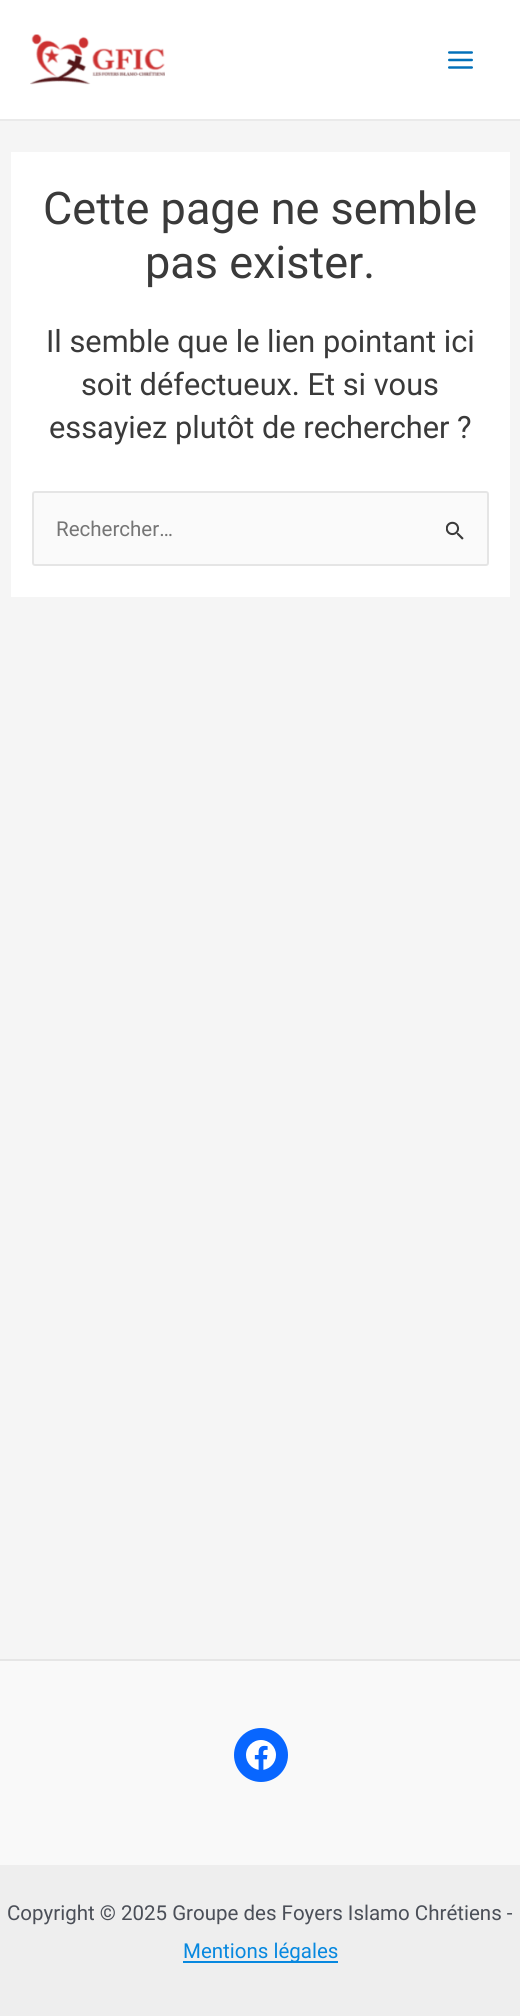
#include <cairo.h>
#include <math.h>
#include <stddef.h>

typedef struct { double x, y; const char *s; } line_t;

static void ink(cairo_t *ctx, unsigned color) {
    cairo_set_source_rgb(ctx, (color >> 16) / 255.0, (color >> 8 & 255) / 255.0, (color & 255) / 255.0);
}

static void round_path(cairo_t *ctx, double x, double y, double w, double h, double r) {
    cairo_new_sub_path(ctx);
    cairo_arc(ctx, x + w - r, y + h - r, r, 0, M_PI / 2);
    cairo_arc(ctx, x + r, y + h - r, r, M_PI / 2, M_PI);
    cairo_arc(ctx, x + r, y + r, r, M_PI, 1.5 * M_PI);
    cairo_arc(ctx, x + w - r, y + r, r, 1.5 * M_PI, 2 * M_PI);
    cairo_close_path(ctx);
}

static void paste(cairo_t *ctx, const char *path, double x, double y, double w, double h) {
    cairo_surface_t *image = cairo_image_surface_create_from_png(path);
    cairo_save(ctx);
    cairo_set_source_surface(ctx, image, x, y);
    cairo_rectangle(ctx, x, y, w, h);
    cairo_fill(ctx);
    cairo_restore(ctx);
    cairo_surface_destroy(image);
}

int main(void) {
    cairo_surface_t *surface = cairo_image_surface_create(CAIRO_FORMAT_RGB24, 520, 2016);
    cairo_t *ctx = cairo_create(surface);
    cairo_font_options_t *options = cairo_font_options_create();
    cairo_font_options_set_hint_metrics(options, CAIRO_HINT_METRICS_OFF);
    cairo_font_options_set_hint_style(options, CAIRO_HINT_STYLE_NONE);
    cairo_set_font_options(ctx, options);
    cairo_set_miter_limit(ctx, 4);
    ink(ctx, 0xF5F5F5);
    cairo_paint(ctx);
    ink(ctx, 0xFFFFFF);
    cairo_rectangle(ctx, 0, 0, 520, 119);
    cairo_fill(ctx);
    ink(ctx, 0xEAEAEA);
    cairo_rectangle(ctx, 0, 119, 520, 2);
    cairo_fill(ctx);
    paste(ctx, "media/1.png", 30, 34, 135, 51);
    paste(ctx, "media/2.png", 448, 51, 25, 18);
    ink(ctx, 0xFFFFFF);
    cairo_rectangle(ctx, 11, 152, 499, 445);
    cairo_fill(ctx);
    cairo_select_font_face(ctx, "Roboto", CAIRO_FONT_SLANT_NORMAL, CAIRO_FONT_WEIGHT_NORMAL);
    cairo_set_font_size(ctx, 45);
    ink(ctx, 0x3A3A3A);
    cairo_move_to(ctx, 43, 224);
    cairo_show_text(ctx, "Cette page ne semble");
    cairo_move_to(ctx, 145, 278);
    cairo_show_text(ctx, "pas exister.");
    cairo_set_font_size(ctx, 30.75);
    {
        static const line_t items[] = {
            {46, 352, "Il semble que le lien pointant ici"},
            {81, 395, "soit défectueux. Et si vous"},
            {49, 438, "essayiez plutôt de rechercher ?"},
        };
        for (size_t i = 0; i < sizeof items / sizeof *items; i++) {
            cairo_move_to(ctx, items[i].x, items[i].y);
            cairo_show_text(ctx, items[i].s);
        }
    }
    ink(ctx, 0xFAFAFA);
    round_path(ctx, 33, 492, 455, 73, 2);
    cairo_fill_preserve(ctx);
    ink(ctx, 0xE5E5E5);
    cairo_stroke(ctx);
    cairo_set_font_size(ctx, 20.5);
    ink(ctx, 0x757575);
    cairo_move_to(ctx, 56, 536);
    cairo_show_text(ctx, "Rechercher…");
    paste(ctx, "media/3.png", 446, 521, 18, 19);
    ink(ctx, 0xF9F9F9);
    cairo_rectangle(ctx, 0, 1661, 520, 204);
    cairo_fill(ctx);
    ink(ctx, 0xE6E6E6);
    cairo_rectangle(ctx, 0, 1659, 520, 2);
    cairo_fill(ctx);
    ink(ctx, 0x0866FF);
    cairo_arc(ctx, 261, 1755, 27, 0, 2 * M_PI);
    cairo_fill(ctx);
    paste(ctx, "media/4.png", 246, 1740, 30, 30);
    ink(ctx, 0xEEEEEE);
    cairo_rectangle(ctx, 0, 1865, 520, 151);
    cairo_fill(ctx);
    ink(ctx, 0x4B4F58);
    cairo_move_to(ctx, 7, 1920);
    cairo_show_text(ctx, "Copyright © 2025 Groupe des Foyers Islamo Chrétiens -");
    ink(ctx, 0x0788DF);
    cairo_rectangle(ctx, 183, 1961, 155, 2);
    cairo_fill(ctx);
    cairo_move_to(ctx, 183, 1958);
    cairo_show_text(ctx, "Mentions légales");
    cairo_surface_write_to_png(surface, "image.png");
    cairo_font_options_destroy(options);
    cairo_destroy(ctx);
    cairo_surface_destroy(surface);
    return 0;
}
